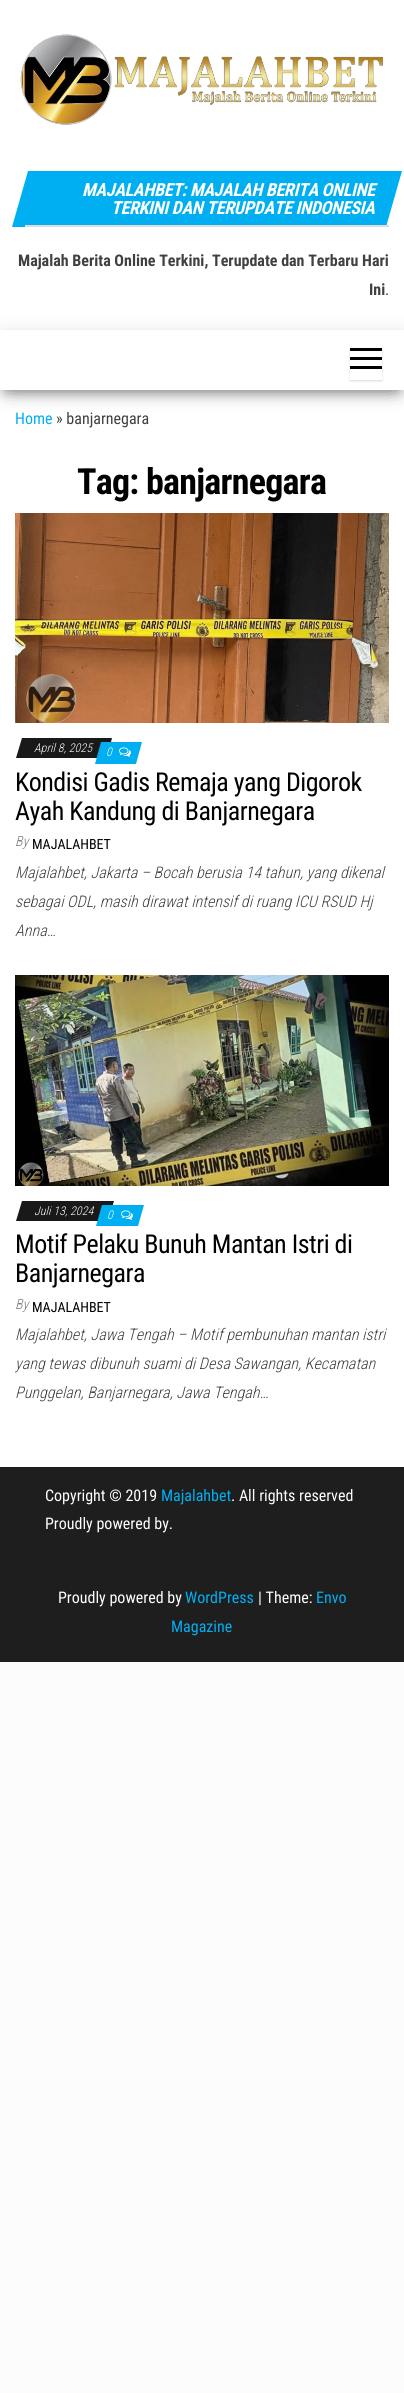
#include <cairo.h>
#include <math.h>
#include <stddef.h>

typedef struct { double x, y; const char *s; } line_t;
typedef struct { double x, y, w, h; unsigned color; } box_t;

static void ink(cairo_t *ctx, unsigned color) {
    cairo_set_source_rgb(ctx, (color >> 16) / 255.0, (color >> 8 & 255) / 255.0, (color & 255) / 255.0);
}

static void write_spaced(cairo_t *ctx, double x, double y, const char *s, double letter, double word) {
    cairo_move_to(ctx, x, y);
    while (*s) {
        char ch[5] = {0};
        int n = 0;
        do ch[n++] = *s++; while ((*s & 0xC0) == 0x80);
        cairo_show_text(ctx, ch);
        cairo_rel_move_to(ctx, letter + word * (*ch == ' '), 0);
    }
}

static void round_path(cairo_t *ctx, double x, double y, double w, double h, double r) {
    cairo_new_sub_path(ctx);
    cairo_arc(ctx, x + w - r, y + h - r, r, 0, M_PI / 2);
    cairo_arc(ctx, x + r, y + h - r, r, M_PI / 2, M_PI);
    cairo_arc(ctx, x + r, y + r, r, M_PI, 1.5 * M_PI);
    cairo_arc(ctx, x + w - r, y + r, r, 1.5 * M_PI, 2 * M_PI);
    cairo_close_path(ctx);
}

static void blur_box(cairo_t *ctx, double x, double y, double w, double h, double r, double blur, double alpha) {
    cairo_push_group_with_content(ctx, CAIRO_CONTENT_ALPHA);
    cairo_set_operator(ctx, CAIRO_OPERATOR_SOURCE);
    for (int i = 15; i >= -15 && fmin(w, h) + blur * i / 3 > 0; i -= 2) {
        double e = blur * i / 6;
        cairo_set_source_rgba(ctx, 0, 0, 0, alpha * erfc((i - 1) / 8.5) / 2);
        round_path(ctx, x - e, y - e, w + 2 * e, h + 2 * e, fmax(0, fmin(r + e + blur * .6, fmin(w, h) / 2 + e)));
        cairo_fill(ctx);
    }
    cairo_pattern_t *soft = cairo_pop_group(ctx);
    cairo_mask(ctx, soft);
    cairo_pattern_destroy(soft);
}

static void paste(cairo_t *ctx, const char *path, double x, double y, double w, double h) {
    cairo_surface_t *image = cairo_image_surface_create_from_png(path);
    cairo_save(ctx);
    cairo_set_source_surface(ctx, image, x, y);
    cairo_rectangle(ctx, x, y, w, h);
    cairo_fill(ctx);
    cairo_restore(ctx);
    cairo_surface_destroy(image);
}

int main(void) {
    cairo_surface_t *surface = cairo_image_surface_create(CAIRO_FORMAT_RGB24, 404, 2393);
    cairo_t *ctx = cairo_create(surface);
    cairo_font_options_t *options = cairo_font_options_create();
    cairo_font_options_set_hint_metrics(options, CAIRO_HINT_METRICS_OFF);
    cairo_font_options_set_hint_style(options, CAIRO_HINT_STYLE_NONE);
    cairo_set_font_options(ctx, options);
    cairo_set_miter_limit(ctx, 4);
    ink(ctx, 0xFCFCFC);
    cairo_paint(ctx);
    ink(ctx, 0xFFFFFF);
    cairo_rectangle(ctx, 0, 0, 404, 330);
    cairo_fill(ctx);
    paste(ctx, "media/1.png", 20, 34, 363, 91);
    ink(ctx, 0x00AFF2);
    cairo_new_path(ctx);
    cairo_move_to(ctx, 28, 171);
    cairo_line_to(ctx, 402, 171);
    cairo_line_to(ctx, 386, 227);
    cairo_line_to(ctx, 12, 227);
    cairo_close_path(ctx);
    cairo_fill(ctx);
    cairo_select_font_face(ctx, "Roboto Condensed", CAIRO_FONT_SLANT_ITALIC, CAIRO_FONT_WEIGHT_BOLD);
    cairo_set_font_size(ctx, 18);
    ink(ctx, 0xFFFFFF);
    write_spaced(ctx, 82, 196, "MAJALAHBET: MAJALAH BERITA ONLINE", -0.35, 0);
    write_spaced(ctx, 111, 214, "TERKINI DAN TERUPDATE INDONESIA", -0.35, 0);
    ink(ctx, 0xDDDDDD);
    cairo_rectangle(ctx, 25, 225, 364, 2);
    cairo_fill(ctx);
    cairo_select_font_face(ctx, "Roboto Condensed", CAIRO_FONT_SLANT_NORMAL, CAIRO_FONT_WEIGHT_BOLD);
    cairo_set_font_size(ctx, 16);
    ink(ctx, 0x404040);
    cairo_move_to(ctx, 18, 266);
    cairo_show_text(ctx, "Majalah Berita Online Terkini, Terupdate dan Terbaru Hari");
    cairo_move_to(ctx, 369, 295);
    cairo_show_text(ctx, "Ini");
    cairo_select_font_face(ctx, "Roboto Condensed", CAIRO_FONT_SLANT_NORMAL, CAIRO_FONT_WEIGHT_NORMAL);
    cairo_move_to(ctx, 385, 295);
    cairo_show_text(ctx, ".");
    ink(ctx, 0xFFFFFF);
    cairo_rectangle(ctx, 0, 390, 404, 1077);
    cairo_fill(ctx);
    ink(ctx, 0x000000);
    blur_box(ctx, 5, 343, 394, 50, 0, 5, 0.2);
    blur_box(ctx, 0, 333, 404, 60, 0, 10, 0.12);
    blur_box(ctx, 12, 352, 380, 36, 0, 10, 0.42);
    ink(ctx, 0xFFFFFF);
    cairo_rectangle(ctx, 0, 330, 404, 60);
    cairo_fill(ctx);
    cairo_save(ctx);
    cairo_set_fill_rule(ctx, CAIRO_FILL_RULE_EVEN_ODD);
    cairo_new_path(ctx);
    cairo_move_to(ctx, 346, 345);
    cairo_line_to(ctx, 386, 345);
    cairo_line_to(ctx, 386, 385);
    cairo_line_to(ctx, 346, 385);
    cairo_close_path(ctx);
    cairo_move_to(ctx, 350, 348);
    cairo_line_to(ctx, 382, 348);
    cairo_line_to(ctx, 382, 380);
    cairo_line_to(ctx, 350, 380);
    cairo_close_path(ctx);
    cairo_clip(ctx);
    ink(ctx, 0x000000);
    blur_box(ctx, 350, 349, 32, 32, 0, 1, 0.15);
    cairo_restore(ctx);
    {
        static const box_t items[] = {
            {350, 348, 32, 3, 0x000000},
            {350, 357, 32, 3, 0x000000},
            {350, 366, 32, 3, 0x000000},
        };
        for (size_t i = 0; i < sizeof items / sizeof *items; i++) {
            ink(ctx, items[i].color);
            cairo_rectangle(ctx, items[i].x, items[i].y, items[i].w, items[i].h);
            cairo_fill(ctx);
        }
    }
    ink(ctx, 0x00AFF2);
    cairo_move_to(ctx, 15, 424);
    cairo_show_text(ctx, "Home");
    ink(ctx, 0x404040);
    cairo_move_to(ctx, 56, 424);
    cairo_show_text(ctx, "» banjarnegara");
    cairo_select_font_face(ctx, "Roboto Condensed", CAIRO_FONT_SLANT_NORMAL, CAIRO_FONT_WEIGHT_BOLD);
    cairo_set_font_size(ctx, 36);
    ink(ctx, 0x000000);
    write_spaced(ctx, 77, 494, "Tag: banjarnegara", -0.75, 0);
    paste(ctx, "media/2.png", 15, 513, 374, 210);
    ink(ctx, 0x191919);
    cairo_new_path(ctx);
    cairo_move_to(ctx, 22, 738);
    cairo_line_to(ctx, 112, 738);
    cairo_line_to(ctx, 107, 758);
    cairo_line_to(ctx, 16, 758);
    cairo_close_path(ctx);
    cairo_fill(ctx);
    cairo_select_font_face(ctx, "Roboto Condensed Light", CAIRO_FONT_SLANT_ITALIC, CAIRO_FONT_WEIGHT_NORMAL);
    cairo_set_font_size(ctx, 12);
    ink(ctx, 0xFFFFFF);
    cairo_move_to(ctx, 34, 752);
    cairo_show_text(ctx, "April 8, 2025");
    ink(ctx, 0x00AFF2);
    cairo_new_path(ctx);
    cairo_move_to(ctx, 101, 742);
    cairo_line_to(ctx, 142, 742);
    cairo_line_to(ctx, 136, 764);
    cairo_line_to(ctx, 95, 764);
    cairo_close_path(ctx);
    cairo_fill(ctx);
    ink(ctx, 0xFFFFFF);
    cairo_move_to(ctx, 106, 756);
    cairo_show_text(ctx, "0");
    paste(ctx, "media/3.png", 119, 747, 12, 10);
    cairo_select_font_face(ctx, "Roboto Condensed", CAIRO_FONT_SLANT_NORMAL, CAIRO_FONT_WEIGHT_NORMAL);
    cairo_set_font_size(ctx, 26);
    ink(ctx, 0x000000);
    write_spaced(ctx, 15, 791, "Kondisi Gadis Remaja yang Digorok", -0.5, 0);
    write_spaced(ctx, 15, 820, "Ayah Kandung di Banjarnegara", -0.5, 0);
    cairo_select_font_face(ctx, "Roboto Condensed Light", CAIRO_FONT_SLANT_ITALIC, CAIRO_FONT_WEIGHT_NORMAL);
    cairo_set_font_size(ctx, 14);
    ink(ctx, 0x797979);
    cairo_move_to(ctx, 15, 846);
    cairo_show_text(ctx, "By");
    cairo_select_font_face(ctx, "Roboto Condensed", CAIRO_FONT_SLANT_NORMAL, CAIRO_FONT_WEIGHT_NORMAL);
    ink(ctx, 0x000000);
    cairo_move_to(ctx, 32, 849);
    cairo_show_text(ctx, "MAJALAHBET");
    cairo_select_font_face(ctx, "Roboto Condensed Light", CAIRO_FONT_SLANT_ITALIC, CAIRO_FONT_WEIGHT_NORMAL);
    cairo_set_font_size(ctx, 16);
    ink(ctx, 0x404040);
    {
        static const line_t items[] = {
            {15, 878, "Majalahbet, Jakarta – Bocah berusia 14 tahun, yang dikenal"},
            {15, 907, "sebagai ODL, masih dirawat intensif di ruang ICU RSUD Hj"},
            {15, 936, "Anna…"},
        };
        for (size_t i = 0; i < sizeof items / sizeof *items; i++) {
            cairo_move_to(ctx, items[i].x, items[i].y);
            cairo_show_text(ctx, items[i].s);
        }
    }
    paste(ctx, "media/4.png", 15, 975, 374, 211);
    ink(ctx, 0x191919);
    cairo_new_path(ctx);
    cairo_move_to(ctx, 22, 1201);
    cairo_line_to(ctx, 114, 1201);
    cairo_line_to(ctx, 108, 1221);
    cairo_line_to(ctx, 16, 1221);
    cairo_close_path(ctx);
    cairo_fill(ctx);
    cairo_set_font_size(ctx, 12);
    ink(ctx, 0xFFFFFF);
    cairo_move_to(ctx, 34, 1215);
    cairo_show_text(ctx, "Juli 13, 2024");
    ink(ctx, 0x00AFF2);
    cairo_new_path(ctx);
    cairo_move_to(ctx, 102, 1205);
    cairo_line_to(ctx, 144, 1205);
    cairo_line_to(ctx, 138, 1226);
    cairo_line_to(ctx, 96, 1226);
    cairo_close_path(ctx);
    cairo_fill(ctx);
    ink(ctx, 0xFFFFFF);
    cairo_move_to(ctx, 107, 1219);
    cairo_show_text(ctx, "0");
    paste(ctx, "media/3.png", 121, 1210, 12, 10);
    cairo_select_font_face(ctx, "Roboto Condensed", CAIRO_FONT_SLANT_NORMAL, CAIRO_FONT_WEIGHT_NORMAL);
    cairo_set_font_size(ctx, 26);
    ink(ctx, 0x000000);
    write_spaced(ctx, 15, 1253, "Motif Pelaku Bunuh Mantan Istri di", -0.5, 0);
    write_spaced(ctx, 15, 1282, "Banjarnegara", -0.5, 0);
    cairo_select_font_face(ctx, "Roboto Condensed Light", CAIRO_FONT_SLANT_ITALIC, CAIRO_FONT_WEIGHT_NORMAL);
    cairo_set_font_size(ctx, 14);
    ink(ctx, 0x797979);
    cairo_move_to(ctx, 15, 1309);
    cairo_show_text(ctx, "By");
    cairo_select_font_face(ctx, "Roboto Condensed", CAIRO_FONT_SLANT_NORMAL, CAIRO_FONT_WEIGHT_NORMAL);
    ink(ctx, 0x000000);
    cairo_move_to(ctx, 32, 1312);
    cairo_show_text(ctx, "MAJALAHBET");
    cairo_select_font_face(ctx, "Roboto Condensed Light", CAIRO_FONT_SLANT_ITALIC, CAIRO_FONT_WEIGHT_NORMAL);
    cairo_set_font_size(ctx, 16);
    ink(ctx, 0x404040);
    {
        static const line_t items[] = {
            {15, 1340, "Majalahbet, Jawa Tengah – Motif pembunuhan mantan istri"},
            {15, 1369, "yang tewas dibunuh suami di Desa Sawangan, Kecamatan"},
            {15, 1398, "Punggelan, Banjarnegara, Jawa Tengah…"},
        };
        for (size_t i = 0; i < sizeof items / sizeof *items; i++) {
            cairo_move_to(ctx, items[i].x, items[i].y);
            cairo_show_text(ctx, items[i].s);
        }
    }
    ink(ctx, 0x1E1E1E);
    cairo_rectangle(ctx, 0, 1467, 404, 195);
    cairo_fill(ctx);
    cairo_select_font_face(ctx, "Roboto Condensed", CAIRO_FONT_SLANT_NORMAL, CAIRO_FONT_WEIGHT_NORMAL);
    ink(ctx, 0xFFFFFF);
    cairo_move_to(ctx, 45, 1501);
    cairo_show_text(ctx, "Copyright © 2019");
    ink(ctx, 0x00AFF2);
    cairo_move_to(ctx, 161, 1501);
    cairo_show_text(ctx, "Majalahbet");
    ink(ctx, 0xFFFFFF);
    {
        static const line_t items[] = {
            {231, 1501, ". All rights reserved"},
            {45, 1529, "Proudly powered by."},
            {58, 1603, "Proudly powered by"},
        };
        for (size_t i = 0; i < sizeof items / sizeof *items; i++) {
            cairo_move_to(ctx, items[i].x, items[i].y);
            cairo_show_text(ctx, items[i].s);
        }
    }
    ink(ctx, 0x00AFF2);
    cairo_move_to(ctx, 185, 1603);
    cairo_show_text(ctx, "WordPress");
    ink(ctx, 0xFFFFFF);
    cairo_move_to(ctx, 258, 1603);
    cairo_show_text(ctx, "| Theme:");
    ink(ctx, 0x00AFF2);
    cairo_move_to(ctx, 316, 1603);
    cairo_show_text(ctx, "Envo");
    cairo_move_to(ctx, 171, 1632);
    cairo_show_text(ctx, "Magazine");
    cairo_surface_write_to_png(surface, "image.png");
    cairo_font_options_destroy(options);
    cairo_destroy(ctx);
    cairo_surface_destroy(surface);
    return 0;
}
